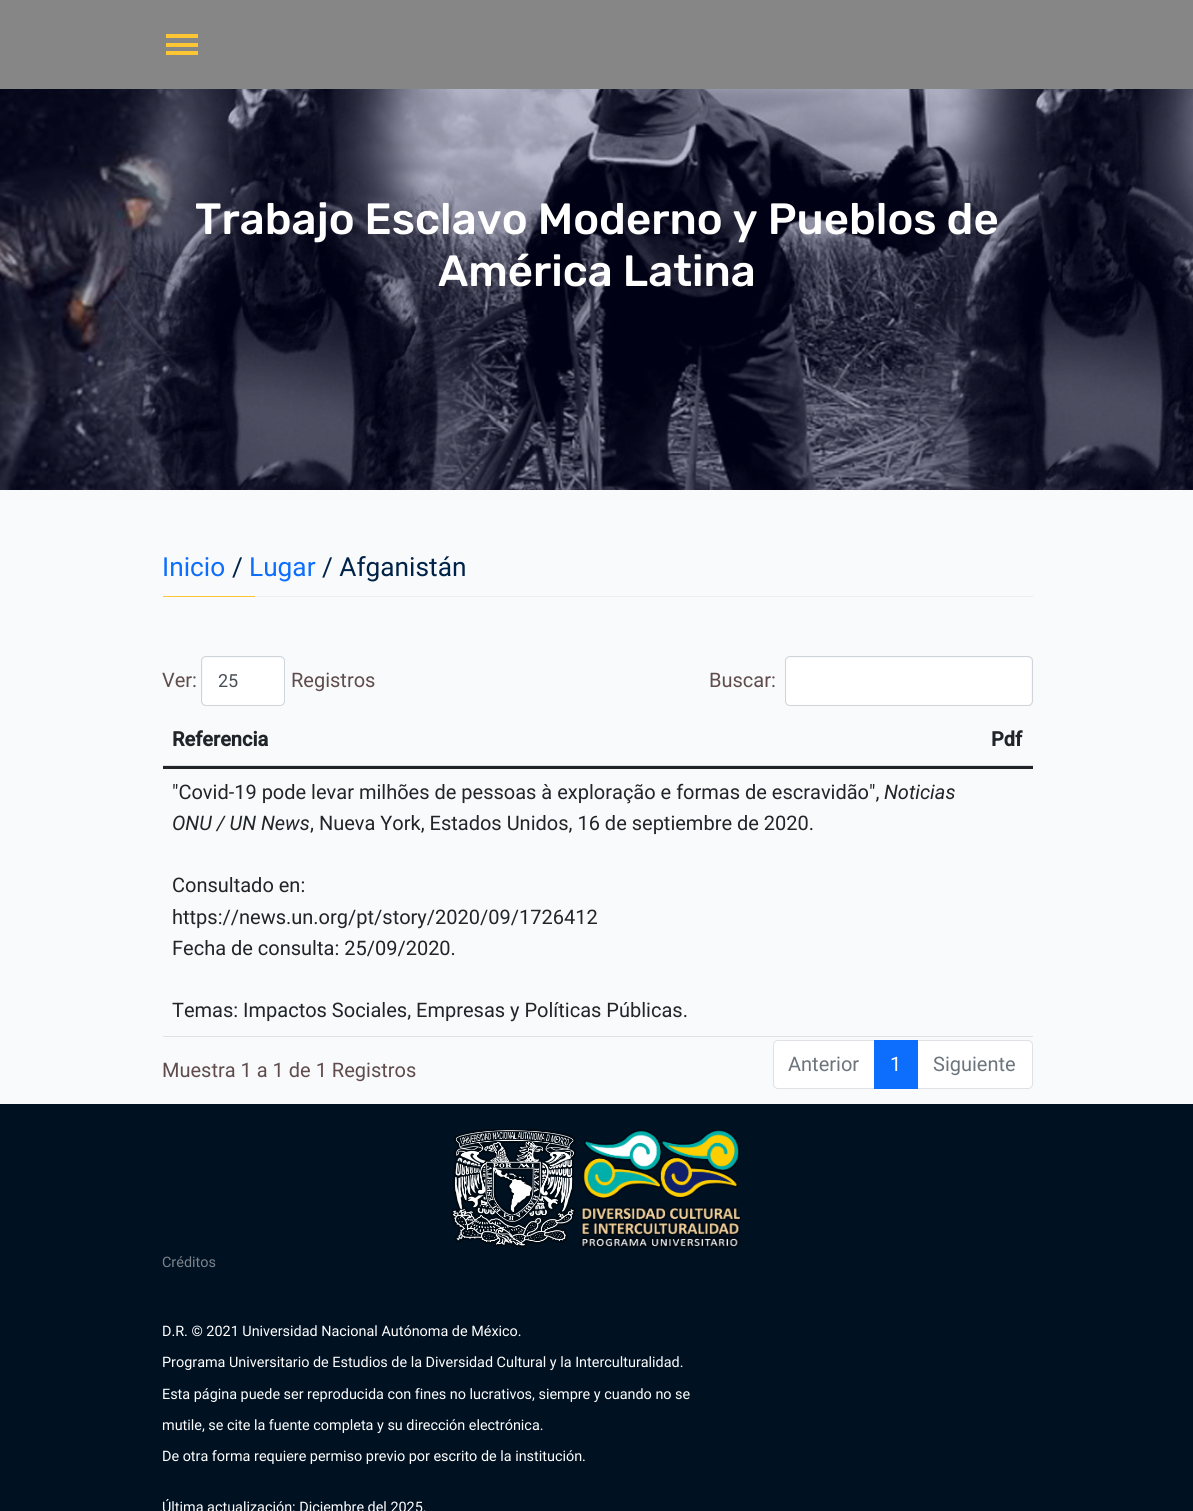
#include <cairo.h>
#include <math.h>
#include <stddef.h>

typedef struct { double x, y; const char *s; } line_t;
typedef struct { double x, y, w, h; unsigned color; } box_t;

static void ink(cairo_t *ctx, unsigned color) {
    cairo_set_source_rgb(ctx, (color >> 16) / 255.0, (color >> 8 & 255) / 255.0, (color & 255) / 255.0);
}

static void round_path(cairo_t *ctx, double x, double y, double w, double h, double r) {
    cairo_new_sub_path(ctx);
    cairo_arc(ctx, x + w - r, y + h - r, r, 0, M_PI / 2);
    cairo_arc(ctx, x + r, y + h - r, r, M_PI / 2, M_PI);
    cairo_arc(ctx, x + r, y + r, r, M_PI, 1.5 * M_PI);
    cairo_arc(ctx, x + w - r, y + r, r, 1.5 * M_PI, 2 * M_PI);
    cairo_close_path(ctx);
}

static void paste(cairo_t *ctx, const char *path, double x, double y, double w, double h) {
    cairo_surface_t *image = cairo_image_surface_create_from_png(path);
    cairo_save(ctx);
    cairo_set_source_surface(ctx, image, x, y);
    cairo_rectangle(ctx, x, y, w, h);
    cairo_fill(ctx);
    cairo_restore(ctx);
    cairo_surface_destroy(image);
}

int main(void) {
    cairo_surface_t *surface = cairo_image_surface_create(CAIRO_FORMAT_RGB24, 1193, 1511);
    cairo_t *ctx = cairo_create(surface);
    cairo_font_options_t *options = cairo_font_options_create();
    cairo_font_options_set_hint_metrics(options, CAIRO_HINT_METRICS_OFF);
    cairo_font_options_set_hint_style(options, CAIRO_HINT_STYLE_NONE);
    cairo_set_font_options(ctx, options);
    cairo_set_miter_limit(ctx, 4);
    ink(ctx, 0xF8FAFC);
    cairo_paint(ctx);
    {
        static const box_t items[] = {
            {0, 0, 1193, 89, 0x868686},
            {166, 34, 32, 4, 0xFDC632},
            {166, 43, 32, 4, 0xFDC632},
            {166, 51, 32, 4, 0xFDC632},
        };
        for (size_t i = 0; i < sizeof items / sizeof *items; i++) {
            ink(ctx, items[i].color);
            cairo_rectangle(ctx, items[i].x, items[i].y, items[i].w, items[i].h);
            cairo_fill(ctx);
        }
    }
    paste(ctx, "media/1.png", 0, 89, 1193, 401);
    cairo_select_font_face(ctx, "Rubik Medium", CAIRO_FONT_SLANT_NORMAL, CAIRO_FONT_WEIGHT_NORMAL);
    cairo_set_font_size(ctx, 43.75);
    ink(ctx, 0xFFFFFF);
    cairo_move_to(ctx, 195, 234);
    cairo_show_text(ctx, "Trabajo Esclavo Moderno y Pueblos de");
    cairo_move_to(ctx, 438, 286);
    cairo_show_text(ctx, "América Latina");
    ink(ctx, 0xEEEEEE);
    cairo_rectangle(ctx, 255, 596, 778, 1);
    cairo_fill(ctx);
    cairo_select_font_face(ctx, "Roboto", CAIRO_FONT_SLANT_NORMAL, CAIRO_FONT_WEIGHT_NORMAL);
    cairo_set_font_size(ctx, 26.25);
    ink(ctx, 0x0D6EFD);
    cairo_move_to(ctx, 162, 576);
    cairo_show_text(ctx, "Inicio");
    ink(ctx, 0x002347);
    cairo_move_to(ctx, 232, 576);
    cairo_show_text(ctx, "/");
    ink(ctx, 0x0D6EFD);
    cairo_move_to(ctx, 249, 576);
    cairo_show_text(ctx, "Lugar");
    ink(ctx, 0x002347);
    cairo_move_to(ctx, 322, 576);
    cairo_show_text(ctx, "/ Afganistán");
    ink(ctx, 0xFDC632);
    cairo_rectangle(ctx, 163, 596, 92, 1);
    cairo_fill(ctx);
    cairo_set_font_size(ctx, 20);
    ink(ctx, 0x604C4C);
    cairo_move_to(ctx, 162, 687);
    cairo_show_text(ctx, "Ver:");
    ink(ctx, 0xFFFFFF);
    round_path(ctx, 203, 658, 81, 47, 4);
    cairo_fill(ctx);
    round_path(ctx, 201.5, 656.5, 83, 49, 4.5);
    ink(ctx, 0xCED4DA);
    cairo_set_line_width(ctx, 1);
    cairo_stroke(ctx);
    cairo_set_font_size(ctx, 18);
    ink(ctx, 0x495057);
    cairo_move_to(ctx, 218, 687);
    cairo_show_text(ctx, "25");
    cairo_set_font_size(ctx, 20);
    ink(ctx, 0x604C4C);
    cairo_move_to(ctx, 291, 687);
    cairo_show_text(ctx, "Registros");
    cairo_move_to(ctx, 709, 687);
    cairo_show_text(ctx, "Buscar:");
    ink(ctx, 0xFFFFFF);
    round_path(ctx, 786, 658, 245, 47, 4);
    cairo_fill(ctx);
    round_path(ctx, 785.5, 656.5, 247, 49, 4.5);
    ink(ctx, 0xCED4DA);
    cairo_stroke(ctx);
    ink(ctx, 0xDEE2E6);
    cairo_rectangle(ctx, 163, 765, 870, 1);
    cairo_fill(ctx);
    cairo_select_font_face(ctx, "Roboto", CAIRO_FONT_SLANT_NORMAL, CAIRO_FONT_WEIGHT_BOLD);
    ink(ctx, 0x212529);
    cairo_move_to(ctx, 172, 746);
    cairo_show_text(ctx, "Referencia");
    cairo_move_to(ctx, 991, 746);
    cairo_show_text(ctx, "Pdf");
    cairo_rectangle(ctx, 163, 766, 870, 3);
    cairo_fill(ctx);
    ink(ctx, 0xDEE2E6);
    cairo_rectangle(ctx, 163, 1036, 870, 1);
    cairo_fill(ctx);
    cairo_select_font_face(ctx, "Roboto", CAIRO_FONT_SLANT_NORMAL, CAIRO_FONT_WEIGHT_NORMAL);
    ink(ctx, 0x212529);
    cairo_move_to(ctx, 172, 799);
    cairo_show_text(ctx, "\"Covid-19 pode levar milhões de pessoas à exploração e formas de escravidão\",");
    cairo_select_font_face(ctx, "Roboto", CAIRO_FONT_SLANT_ITALIC, CAIRO_FONT_WEIGHT_NORMAL);
    cairo_move_to(ctx, 884, 799);
    cairo_show_text(ctx, "Noticias");
    cairo_move_to(ctx, 172, 830);
    cairo_show_text(ctx, "ONU / UN News");
    cairo_select_font_face(ctx, "Roboto", CAIRO_FONT_SLANT_NORMAL, CAIRO_FONT_WEIGHT_NORMAL);
    {
        static const line_t items[] = {
            {310, 830, ", Nueva York, Estados Unidos, 16 de septiembre de 2020."},
            {172, 892, "Consultado en:"},
            {172, 924, "https://news.un.org/pt/story/2020/09/1726412"},
            {172, 955, "Fecha de consulta: 25/09/2020."},
            {172, 1017, "Temas: Impactos Sociales, Empresas y Políticas Públicas."},
        };
        for (size_t i = 0; i < sizeof items / sizeof *items; i++) {
            cairo_move_to(ctx, items[i].x, items[i].y);
            cairo_show_text(ctx, items[i].s);
        }
    }
    ink(ctx, 0x604C4C);
    cairo_move_to(ctx, 162, 1077);
    cairo_show_text(ctx, "Muestra 1 a 1 de 1 Registros");
    ink(ctx, 0xFFFFFF);
    cairo_new_path(ctx);
    cairo_move_to(ctx, 778, 1040.5);
    cairo_line_to(ctx, 874.5, 1040.5);
    cairo_line_to(ctx, 874.5, 1088.5);
    cairo_line_to(ctx, 778, 1088.5);
    cairo_curve_to(ctx, 775.5, 1088.5, 773.5, 1086.5, 773.5, 1084);
    cairo_line_to(ctx, 773.5, 1045);
    cairo_curve_to(ctx, 773.5, 1042.5, 775.5, 1040.5, 778, 1040.5);
    cairo_close_path(ctx);
    cairo_fill_preserve(ctx);
    ink(ctx, 0xDEE2E6);
    cairo_stroke(ctx);
    ink(ctx, 0x6C757D);
    cairo_move_to(ctx, 788, 1071);
    cairo_show_text(ctx, "Anterior");
    ink(ctx, 0xFFFFFF);
    cairo_new_path(ctx);
    cairo_move_to(ctx, 916.5, 1040.5);
    cairo_line_to(ctx, 1028, 1040.5);
    cairo_curve_to(ctx, 1030.5, 1040.5, 1032.5, 1042.5, 1032.5, 1045);
    cairo_line_to(ctx, 1032.5, 1084);
    cairo_curve_to(ctx, 1032.5, 1086.5, 1030.5, 1088.5, 1028, 1088.5);
    cairo_line_to(ctx, 916.5, 1088.5);
    cairo_close_path(ctx);
    cairo_fill_preserve(ctx);
    ink(ctx, 0xDEE2E6);
    cairo_stroke(ctx);
    ink(ctx, 0x0D6EFD);
    cairo_rectangle(ctx, 874, 1040, 44, 49);
    cairo_fill(ctx);
    ink(ctx, 0xFFFFFF);
    cairo_move_to(ctx, 890, 1071);
    cairo_show_text(ctx, "1");
    ink(ctx, 0x6C757D);
    cairo_move_to(ctx, 933, 1071);
    cairo_show_text(ctx, "Siguiente");
    ink(ctx, 0x001122);
    cairo_rectangle(ctx, 0, 1104, 1193, 407);
    cairo_fill(ctx);
    paste(ctx, "media/2.png", 451, 1129, 125, 119);
    paste(ctx, "media/3.png", 580, 1129, 162, 119);
    cairo_set_font_size(ctx, 14.4);
    ink(ctx, 0x7B838A);
    cairo_move_to(ctx, 162, 1267);
    cairo_show_text(ctx, "Créditos");
    ink(ctx, 0xFFFFFF);
    {
        static const line_t items[] = {
            {162, 1336, "D.R. © 2021 Universidad Nacional Autónoma de México."},
            {162, 1367, "Programa Universitario de Estudios de la Diversidad Cultural y la Interculturalidad."},
            {162, 1399, "Esta página puede ser reproducida con fines no lucrativos, siempre y cuando no se"},
            {162, 1430, "mutile, se cite la fuente completa y su dirección electrónica."},
            {162, 1461, "De otra forma requiere permiso previo por escrito de la institución."},
            {162, 1512, "Última actualización: Diciembre del 2025."},
        };
        for (size_t i = 0; i < sizeof items / sizeof *items; i++) {
            cairo_move_to(ctx, items[i].x, items[i].y);
            cairo_show_text(ctx, items[i].s);
        }
    }
    cairo_surface_write_to_png(surface, "image.png");
    cairo_font_options_destroy(options);
    cairo_destroy(ctx);
    cairo_surface_destroy(surface);
    return 0;
}
